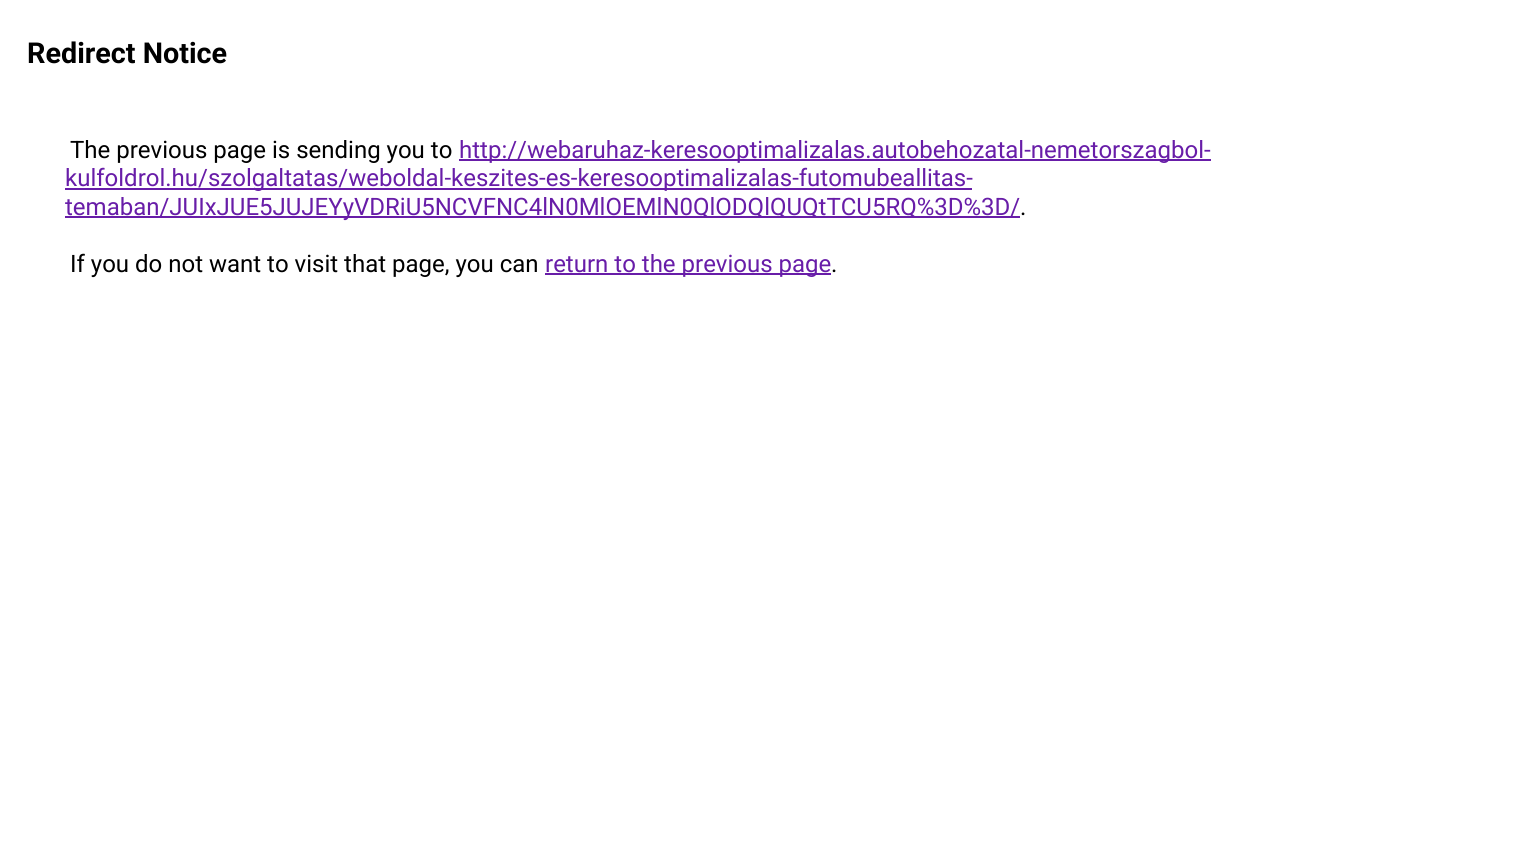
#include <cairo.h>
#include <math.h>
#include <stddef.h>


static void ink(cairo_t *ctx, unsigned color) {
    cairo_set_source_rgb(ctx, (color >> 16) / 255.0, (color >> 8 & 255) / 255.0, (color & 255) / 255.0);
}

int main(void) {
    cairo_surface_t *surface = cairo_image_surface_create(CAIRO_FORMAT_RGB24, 1538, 868);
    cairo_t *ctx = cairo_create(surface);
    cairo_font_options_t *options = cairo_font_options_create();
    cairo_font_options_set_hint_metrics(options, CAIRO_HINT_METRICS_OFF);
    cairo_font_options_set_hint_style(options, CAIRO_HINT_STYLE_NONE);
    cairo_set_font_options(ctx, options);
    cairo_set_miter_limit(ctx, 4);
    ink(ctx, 0xFFFFFF);
    cairo_paint(ctx);
    cairo_select_font_face(ctx, "Roboto", CAIRO_FONT_SLANT_NORMAL, CAIRO_FONT_WEIGHT_BOLD);
    cairo_set_font_size(ctx, 28.75);
    ink(ctx, 0x000000);
    cairo_move_to(ctx, 27, 63);
    cairo_show_text(ctx, "Redirect Notice");
    cairo_select_font_face(ctx, "Roboto", CAIRO_FONT_SLANT_NORMAL, CAIRO_FONT_WEIGHT_NORMAL);
    cairo_set_font_size(ctx, 24);
    cairo_move_to(ctx, 70, 158);
    cairo_show_text(ctx, "The previous page is sending you to");
    ink(ctx, 0x681DA8);
    cairo_rectangle(ctx, 459, 159, 752, 2);
    cairo_fill(ctx);
    cairo_move_to(ctx, 459, 158);
    cairo_show_text(ctx, "http://webaruhaz-keresooptimalizalas.autobehozatal-nemetorszagbol-");
    cairo_rectangle(ctx, 65, 188, 907, 2);
    cairo_fill(ctx);
    cairo_move_to(ctx, 65, 186);
    cairo_show_text(ctx, "kulfoldrol.hu/szolgaltatas/weboldal-keszites-es-keresooptimalizalas-futomubeallitas-");
    cairo_rectangle(ctx, 65, 216, 955, 2);
    cairo_fill(ctx);
    cairo_move_to(ctx, 65, 215);
    cairo_show_text(ctx, "temaban/JUIxJUE5JUJEYyVDRiU5NCVFNC4lN0MlOEMlN0QlODQlQUQtTCU5RQ%3D%3D/");
    ink(ctx, 0x000000);
    cairo_move_to(ctx, 1020, 215);
    cairo_show_text(ctx, ".");
    cairo_move_to(ctx, 70, 272);
    cairo_show_text(ctx, "If you do not want to visit that page, you can");
    ink(ctx, 0x681DA8);
    cairo_rectangle(ctx, 545, 273, 286, 2);
    cairo_fill(ctx);
    cairo_move_to(ctx, 545, 272);
    cairo_show_text(ctx, "return to the previous page");
    ink(ctx, 0x000000);
    cairo_move_to(ctx, 831, 272);
    cairo_show_text(ctx, ".");
    cairo_surface_write_to_png(surface, "image.png");
    cairo_font_options_destroy(options);
    cairo_destroy(ctx);
    cairo_surface_destroy(surface);
    return 0;
}
